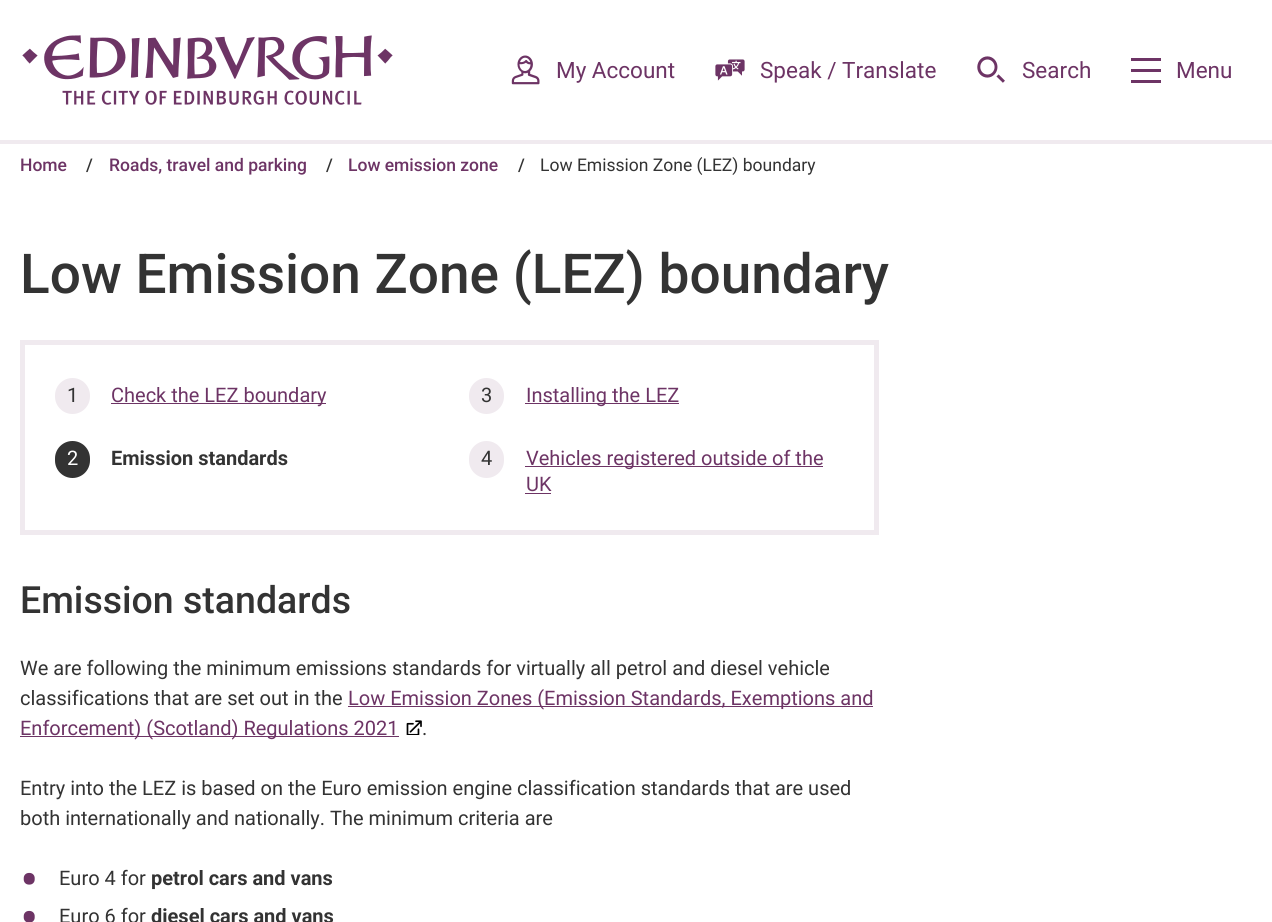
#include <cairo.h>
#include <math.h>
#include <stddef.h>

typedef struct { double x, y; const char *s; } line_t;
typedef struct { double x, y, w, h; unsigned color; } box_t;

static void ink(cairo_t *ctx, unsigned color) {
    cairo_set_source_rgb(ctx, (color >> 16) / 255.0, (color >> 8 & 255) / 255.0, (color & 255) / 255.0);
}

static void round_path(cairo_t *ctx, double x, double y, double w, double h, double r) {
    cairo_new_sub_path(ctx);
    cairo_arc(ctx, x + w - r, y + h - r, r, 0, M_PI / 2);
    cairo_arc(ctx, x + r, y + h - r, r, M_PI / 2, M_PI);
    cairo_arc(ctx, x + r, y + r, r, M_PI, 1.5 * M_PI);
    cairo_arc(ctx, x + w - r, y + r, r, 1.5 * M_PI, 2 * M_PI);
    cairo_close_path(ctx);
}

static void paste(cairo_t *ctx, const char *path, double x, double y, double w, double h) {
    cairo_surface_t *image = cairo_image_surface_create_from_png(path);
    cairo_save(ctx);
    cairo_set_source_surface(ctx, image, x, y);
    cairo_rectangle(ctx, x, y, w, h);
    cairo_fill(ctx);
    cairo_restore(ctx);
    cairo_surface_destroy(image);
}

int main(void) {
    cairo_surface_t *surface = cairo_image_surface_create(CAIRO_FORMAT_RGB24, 1272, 922);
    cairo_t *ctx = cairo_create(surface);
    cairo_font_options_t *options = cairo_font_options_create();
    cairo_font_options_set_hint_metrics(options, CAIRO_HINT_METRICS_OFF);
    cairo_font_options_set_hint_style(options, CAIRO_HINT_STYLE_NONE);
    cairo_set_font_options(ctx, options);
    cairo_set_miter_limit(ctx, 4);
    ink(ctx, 0xFFFFFF);
    cairo_paint(ctx);
    paste(ctx, "media/1.png", 22, 35, 371, 70);
    paste(ctx, "media/2.png", 511, 55, 29, 30);
    cairo_select_font_face(ctx, "Roboto", CAIRO_FONT_SLANT_NORMAL, CAIRO_FONT_WEIGHT_NORMAL);
    cairo_set_font_size(ctx, 22.5);
    ink(ctx, 0x6D3465);
    cairo_move_to(ctx, 556, 78);
    cairo_show_text(ctx, "My Account");
    paste(ctx, "media/3.png", 715, 59, 30, 22);
    cairo_move_to(ctx, 760, 78);
    cairo_show_text(ctx, "Speak / Translate");
    paste(ctx, "media/4.png", 977, 56, 28, 27);
    cairo_move_to(ctx, 1022, 78);
    cairo_show_text(ctx, "Search");
    {
        static const box_t items[] = {
            {1131, 58, 30, 3, 0x6D3465},
            {1131, 69, 30, 3, 0x6D3465},
            {1131, 80, 30, 3, 0x6D3465},
        };
        for (size_t i = 0; i < sizeof items / sizeof *items; i++) {
            ink(ctx, items[i].color);
            cairo_rectangle(ctx, items[i].x, items[i].y, items[i].w, items[i].h);
            cairo_fill(ctx);
        }
    }
    cairo_move_to(ctx, 1176, 78);
    cairo_show_text(ctx, "Menu");
    ink(ctx, 0xF0EAEF);
    cairo_rectangle(ctx, 0, 140, 1272, 4);
    cairo_fill(ctx);
    cairo_select_font_face(ctx, "Roboto Medium", CAIRO_FONT_SLANT_NORMAL, CAIRO_FONT_WEIGHT_NORMAL);
    cairo_set_font_size(ctx, 17.5);
    ink(ctx, 0x6D3465);
    cairo_move_to(ctx, 20, 171);
    cairo_show_text(ctx, "Home");
    ink(ctx, 0x333333);
    cairo_move_to(ctx, 86, 171);
    cairo_show_text(ctx, "/");
    ink(ctx, 0x6D3465);
    cairo_move_to(ctx, 109, 171);
    cairo_show_text(ctx, "Roads, travel and parking");
    ink(ctx, 0x333333);
    cairo_move_to(ctx, 326, 171);
    cairo_show_text(ctx, "/");
    ink(ctx, 0x6D3465);
    cairo_move_to(ctx, 348, 171);
    cairo_show_text(ctx, "Low emission zone");
    ink(ctx, 0x333333);
    cairo_move_to(ctx, 518, 171);
    cairo_show_text(ctx, "/");
    cairo_select_font_face(ctx, "Roboto", CAIRO_FONT_SLANT_NORMAL, CAIRO_FONT_WEIGHT_NORMAL);
    cairo_move_to(ctx, 540, 171);
    cairo_show_text(ctx, "Low Emission Zone (LEZ) boundary");
    cairo_select_font_face(ctx, "Roboto Medium", CAIRO_FONT_SLANT_NORMAL, CAIRO_FONT_WEIGHT_NORMAL);
    cairo_set_font_size(ctx, 55);
    cairo_move_to(ctx, 20, 293);
    cairo_show_text(ctx, "Low Emission Zone (LEZ) boundary");
    cairo_rectangle(ctx, 22.5, 342.5, 854, 190);
    ink(ctx, 0xF0EAEF);
    cairo_set_line_width(ctx, 5);
    cairo_stroke(ctx);
    round_path(ctx, 55, 378, 35, 36, 17.5);
    cairo_fill(ctx);
    cairo_select_font_face(ctx, "Roboto", CAIRO_FONT_SLANT_NORMAL, CAIRO_FONT_WEIGHT_NORMAL);
    cairo_set_font_size(ctx, 20);
    ink(ctx, 0x333333);
    cairo_move_to(ctx, 67, 402);
    cairo_show_text(ctx, "1");
    ink(ctx, 0x6D3465);
    cairo_rectangle(ctx, 111, 403, 215, 1);
    cairo_fill(ctx);
    cairo_move_to(ctx, 111, 402);
    cairo_show_text(ctx, "Check the LEZ boundary");
    ink(ctx, 0xF0EAEF);
    round_path(ctx, 469, 378, 35, 36, 17.5);
    cairo_fill(ctx);
    ink(ctx, 0x333333);
    cairo_move_to(ctx, 481, 402);
    cairo_show_text(ctx, "3");
    ink(ctx, 0x6D3465);
    cairo_rectangle(ctx, 525, 403, 154, 1);
    cairo_fill(ctx);
    cairo_move_to(ctx, 526, 402);
    cairo_show_text(ctx, "Installing the LEZ");
    ink(ctx, 0x333333);
    round_path(ctx, 55, 441, 35, 37, 17.5);
    cairo_fill(ctx);
    ink(ctx, 0xFFFFFF);
    cairo_move_to(ctx, 67, 465);
    cairo_show_text(ctx, "2");
    cairo_select_font_face(ctx, "Roboto", CAIRO_FONT_SLANT_NORMAL, CAIRO_FONT_WEIGHT_BOLD);
    ink(ctx, 0x333333);
    cairo_move_to(ctx, 111, 465);
    cairo_show_text(ctx, "Emission standards");
    ink(ctx, 0xF0EAEF);
    round_path(ctx, 469, 441, 35, 37, 17.5);
    cairo_fill(ctx);
    cairo_select_font_face(ctx, "Roboto", CAIRO_FONT_SLANT_NORMAL, CAIRO_FONT_WEIGHT_NORMAL);
    ink(ctx, 0x333333);
    cairo_move_to(ctx, 481, 465);
    cairo_show_text(ctx, "4");
    ink(ctx, 0x6D3465);
    cairo_rectangle(ctx, 525, 466, 298, 1);
    cairo_fill(ctx);
    cairo_move_to(ctx, 526, 465);
    cairo_show_text(ctx, "Vehicles registered outside of the");
    cairo_move_to(ctx, 526, 491);
    cairo_show_text(ctx, "UK");
    cairo_rectangle(ctx, 525, 493, 26, 1);
    cairo_fill(ctx);
    cairo_select_font_face(ctx, "Roboto Medium", CAIRO_FONT_SLANT_NORMAL, CAIRO_FONT_WEIGHT_NORMAL);
    cairo_set_font_size(ctx, 37.5);
    ink(ctx, 0x333333);
    cairo_move_to(ctx, 20, 613);
    cairo_show_text(ctx, "Emission standards");
    cairo_select_font_face(ctx, "Roboto", CAIRO_FONT_SLANT_NORMAL, CAIRO_FONT_WEIGHT_NORMAL);
    cairo_set_font_size(ctx, 20);
    cairo_move_to(ctx, 20, 675);
    cairo_show_text(ctx, "We are following the minimum emissions standards for virtually all petrol and diesel vehicle");
    cairo_move_to(ctx, 20, 705);
    cairo_show_text(ctx, "classifications that are set out in the");
    ink(ctx, 0x6D3465);
    cairo_rectangle(ctx, 348, 706, 525, 1);
    cairo_fill(ctx);
    cairo_move_to(ctx, 348, 705);
    cairo_show_text(ctx, "Low Emission Zones (Emission Standards, Exemptions and");
    cairo_rectangle(ctx, 20, 736, 379, 1);
    cairo_fill(ctx);
    cairo_move_to(ctx, 20, 735);
    cairo_show_text(ctx, "Enforcement) (Scotland) Regulations 2021");
    paste(ctx, "media/5.png", 406, 720, 16, 15);
    ink(ctx, 0x333333);
    {
        static const line_t items[] = {
            {422, 735, "."},
            {20, 795, "Entry into the LEZ is based on the Euro emission engine classification standards that are used"},
            {20, 825, "both internationally and nationally. The minimum criteria are"},
        };
        for (size_t i = 0; i < sizeof items / sizeof *items; i++) {
            cairo_move_to(ctx, items[i].x, items[i].y);
            cairo_show_text(ctx, items[i].s);
        }
    }
    cairo_set_font_size(ctx, 55);
    ink(ctx, 0x6D3465);
    cairo_move_to(ctx, 20, 899);
    cairo_show_text(ctx, "•");
    cairo_set_font_size(ctx, 20);
    ink(ctx, 0x333333);
    cairo_move_to(ctx, 59, 885);
    cairo_show_text(ctx, "Euro 4 for");
    cairo_select_font_face(ctx, "Roboto", CAIRO_FONT_SLANT_NORMAL, CAIRO_FONT_WEIGHT_BOLD);
    cairo_move_to(ctx, 151, 885);
    cairo_show_text(ctx, "petrol cars and vans");
    cairo_select_font_face(ctx, "Roboto", CAIRO_FONT_SLANT_NORMAL, CAIRO_FONT_WEIGHT_NORMAL);
    cairo_set_font_size(ctx, 55);
    ink(ctx, 0x6D3465);
    cairo_move_to(ctx, 20, 937);
    cairo_show_text(ctx, "•");
    cairo_set_font_size(ctx, 20);
    ink(ctx, 0x333333);
    cairo_move_to(ctx, 59, 923);
    cairo_show_text(ctx, "Euro 6 for");
    cairo_select_font_face(ctx, "Roboto", CAIRO_FONT_SLANT_NORMAL, CAIRO_FONT_WEIGHT_BOLD);
    cairo_move_to(ctx, 151, 923);
    cairo_show_text(ctx, "diesel cars and vans");
    cairo_surface_write_to_png(surface, "image.png");
    cairo_font_options_destroy(options);
    cairo_destroy(ctx);
    cairo_surface_destroy(surface);
    return 0;
}
